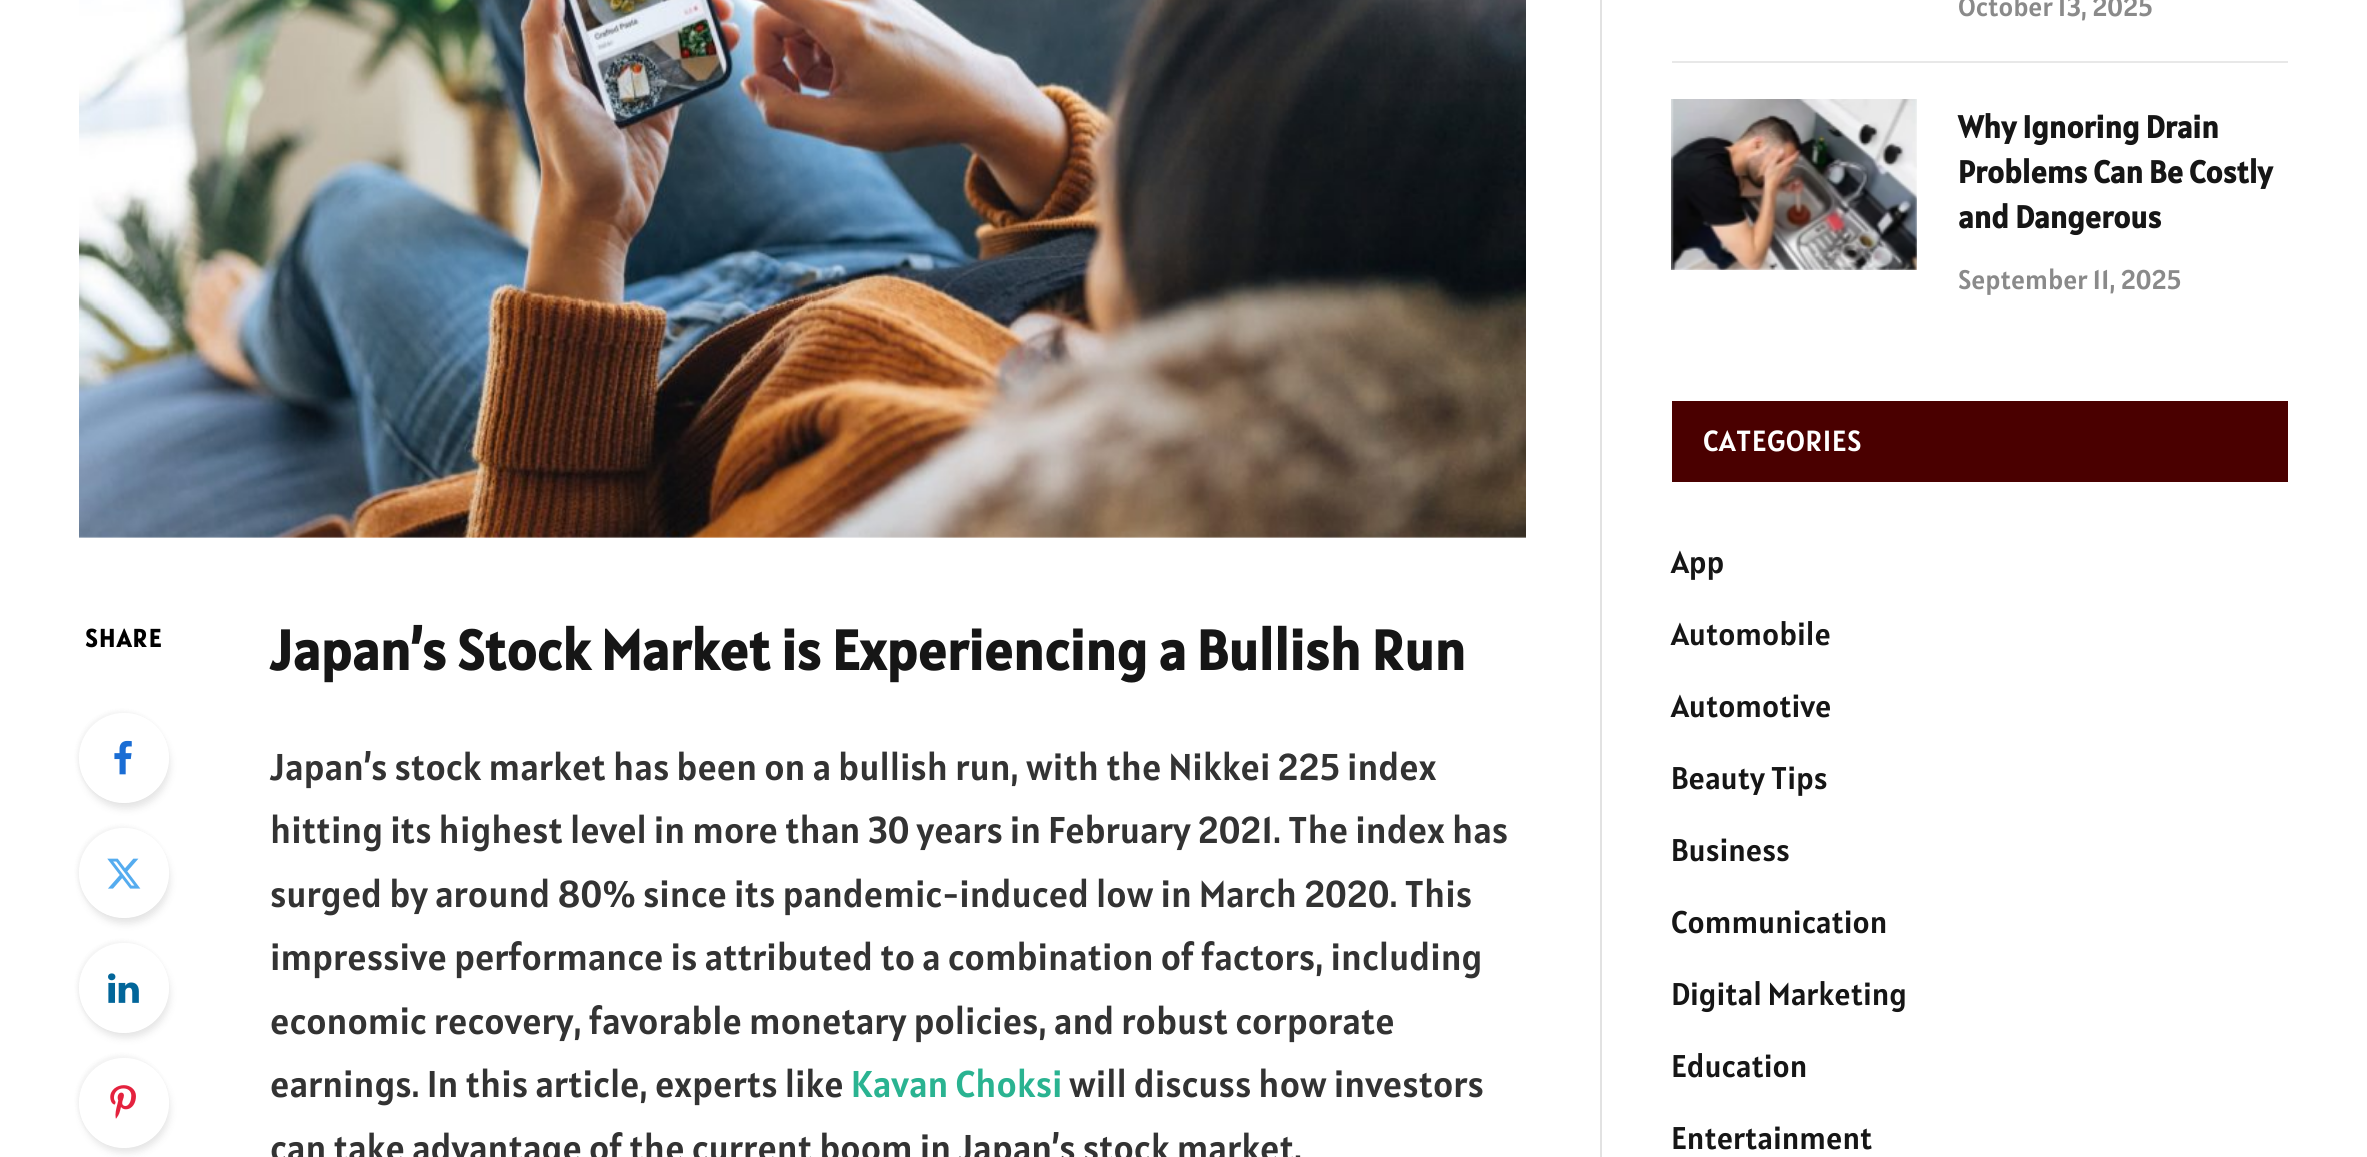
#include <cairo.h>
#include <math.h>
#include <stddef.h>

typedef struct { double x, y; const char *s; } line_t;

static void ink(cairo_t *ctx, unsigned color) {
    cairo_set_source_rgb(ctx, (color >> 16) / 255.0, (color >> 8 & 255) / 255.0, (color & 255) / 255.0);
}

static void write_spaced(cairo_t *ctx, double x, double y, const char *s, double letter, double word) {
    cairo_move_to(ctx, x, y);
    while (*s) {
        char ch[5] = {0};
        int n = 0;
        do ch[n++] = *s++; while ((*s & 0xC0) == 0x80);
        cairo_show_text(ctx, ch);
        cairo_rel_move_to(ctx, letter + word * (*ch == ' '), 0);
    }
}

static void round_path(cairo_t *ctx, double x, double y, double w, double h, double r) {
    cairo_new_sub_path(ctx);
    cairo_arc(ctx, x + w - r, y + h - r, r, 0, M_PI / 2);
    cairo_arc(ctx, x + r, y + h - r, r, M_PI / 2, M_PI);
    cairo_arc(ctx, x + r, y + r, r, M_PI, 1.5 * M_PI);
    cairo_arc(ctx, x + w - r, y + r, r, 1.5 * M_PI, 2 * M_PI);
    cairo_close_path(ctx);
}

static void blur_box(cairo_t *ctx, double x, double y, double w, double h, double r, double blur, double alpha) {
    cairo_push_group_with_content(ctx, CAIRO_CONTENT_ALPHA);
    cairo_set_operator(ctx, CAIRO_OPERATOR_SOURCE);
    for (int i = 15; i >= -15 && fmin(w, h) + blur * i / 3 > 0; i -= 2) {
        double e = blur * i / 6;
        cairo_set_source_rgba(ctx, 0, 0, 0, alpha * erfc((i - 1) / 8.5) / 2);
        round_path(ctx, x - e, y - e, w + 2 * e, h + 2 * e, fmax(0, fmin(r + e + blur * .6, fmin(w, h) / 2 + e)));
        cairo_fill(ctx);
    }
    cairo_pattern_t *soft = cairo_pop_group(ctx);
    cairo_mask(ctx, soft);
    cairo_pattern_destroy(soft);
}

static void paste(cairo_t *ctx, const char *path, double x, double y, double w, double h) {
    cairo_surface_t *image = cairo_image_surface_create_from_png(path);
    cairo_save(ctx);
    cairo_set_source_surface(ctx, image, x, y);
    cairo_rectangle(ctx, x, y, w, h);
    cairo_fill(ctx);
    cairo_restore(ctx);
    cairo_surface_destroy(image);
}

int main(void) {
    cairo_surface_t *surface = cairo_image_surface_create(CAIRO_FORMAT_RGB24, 2367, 1157);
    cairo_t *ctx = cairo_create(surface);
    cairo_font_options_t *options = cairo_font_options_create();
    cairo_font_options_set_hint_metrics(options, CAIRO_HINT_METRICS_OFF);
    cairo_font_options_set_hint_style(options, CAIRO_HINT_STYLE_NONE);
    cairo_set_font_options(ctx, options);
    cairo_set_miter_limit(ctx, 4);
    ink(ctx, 0xFFFFFF);
    cairo_paint(ctx);
    paste(ctx, "media/1.png", 79, 0, 1447, 538);
    cairo_select_font_face(ctx, "Alatsi", CAIRO_FONT_SLANT_NORMAL, CAIRO_FONT_WEIGHT_BOLD);
    cairo_set_font_size(ctx, 25);
    ink(ctx, 0x000000);
    write_spaced(ctx, 85, 647, "SHARE", 1.75, 0);
    cairo_save(ctx);
    cairo_set_fill_rule(ctx, CAIRO_FILL_RULE_EVEN_ODD);
    cairo_new_path(ctx);
    cairo_move_to(ctx, 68, 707);
    cairo_line_to(ctx, 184, 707);
    cairo_line_to(ctx, 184, 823);
    cairo_line_to(ctx, 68, 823);
    cairo_close_path(ctx);
    cairo_move_to(ctx, 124, 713);
    cairo_curve_to(ctx, 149, 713, 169, 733, 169, 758);
    cairo_curve_to(ctx, 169, 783, 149, 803, 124, 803);
    cairo_curve_to(ctx, 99, 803, 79, 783, 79, 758);
    cairo_curve_to(ctx, 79, 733, 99, 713, 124, 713);
    cairo_close_path(ctx);
    cairo_clip(ctx);
    ink(ctx, 0x000000);
    blur_box(ctx, 83, 722, 86, 86, 43, 4.5, 0.12);
    cairo_restore(ctx);
    cairo_save(ctx);
    cairo_set_fill_rule(ctx, CAIRO_FILL_RULE_EVEN_ODD);
    cairo_new_path(ctx);
    cairo_move_to(ctx, 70, 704);
    cairo_line_to(ctx, 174, 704);
    cairo_line_to(ctx, 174, 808);
    cairo_line_to(ctx, 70, 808);
    cairo_close_path(ctx);
    cairo_move_to(ctx, 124, 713);
    cairo_curve_to(ctx, 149, 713, 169, 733, 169, 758);
    cairo_curve_to(ctx, 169, 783, 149, 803, 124, 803);
    cairo_curve_to(ctx, 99, 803, 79, 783, 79, 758);
    cairo_curve_to(ctx, 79, 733, 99, 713, 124, 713);
    cairo_close_path(ctx);
    cairo_clip(ctx);
    ink(ctx, 0x000000);
    blur_box(ctx, 77, 711, 90, 90, 45, 2, 0.05);
    cairo_restore(ctx);
    paste(ctx, "media/2.png", 114, 740, 18, 35);
    cairo_save(ctx);
    cairo_set_fill_rule(ctx, CAIRO_FILL_RULE_EVEN_ODD);
    cairo_new_path(ctx);
    cairo_move_to(ctx, 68, 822);
    cairo_line_to(ctx, 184, 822);
    cairo_line_to(ctx, 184, 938);
    cairo_line_to(ctx, 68, 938);
    cairo_close_path(ctx);
    cairo_move_to(ctx, 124, 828);
    cairo_curve_to(ctx, 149, 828, 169, 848, 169, 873);
    cairo_curve_to(ctx, 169, 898, 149, 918, 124, 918);
    cairo_curve_to(ctx, 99, 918, 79, 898, 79, 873);
    cairo_curve_to(ctx, 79, 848, 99, 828, 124, 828);
    cairo_close_path(ctx);
    cairo_clip(ctx);
    ink(ctx, 0x000000);
    blur_box(ctx, 83, 837, 86, 86, 43, 4.5, 0.12);
    cairo_restore(ctx);
    cairo_save(ctx);
    cairo_set_fill_rule(ctx, CAIRO_FILL_RULE_EVEN_ODD);
    cairo_new_path(ctx);
    cairo_move_to(ctx, 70, 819);
    cairo_line_to(ctx, 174, 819);
    cairo_line_to(ctx, 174, 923);
    cairo_line_to(ctx, 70, 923);
    cairo_close_path(ctx);
    cairo_move_to(ctx, 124, 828);
    cairo_curve_to(ctx, 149, 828, 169, 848, 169, 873);
    cairo_curve_to(ctx, 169, 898, 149, 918, 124, 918);
    cairo_curve_to(ctx, 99, 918, 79, 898, 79, 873);
    cairo_curve_to(ctx, 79, 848, 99, 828, 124, 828);
    cairo_close_path(ctx);
    cairo_clip(ctx);
    ink(ctx, 0x000000);
    blur_box(ctx, 77, 826, 90, 90, 45, 2, 0.05);
    cairo_restore(ctx);
    paste(ctx, "media/3.png", 107, 858, 34, 31);
    cairo_save(ctx);
    cairo_set_fill_rule(ctx, CAIRO_FILL_RULE_EVEN_ODD);
    cairo_new_path(ctx);
    cairo_move_to(ctx, 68, 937);
    cairo_line_to(ctx, 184, 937);
    cairo_line_to(ctx, 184, 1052);
    cairo_line_to(ctx, 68, 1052);
    cairo_close_path(ctx);
    cairo_move_to(ctx, 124, 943);
    cairo_curve_to(ctx, 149, 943, 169, 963, 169, 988);
    cairo_curve_to(ctx, 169, 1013, 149, 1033, 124, 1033);
    cairo_curve_to(ctx, 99, 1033, 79, 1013, 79, 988);
    cairo_curve_to(ctx, 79, 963, 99, 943, 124, 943);
    cairo_close_path(ctx);
    cairo_clip(ctx);
    ink(ctx, 0x000000);
    blur_box(ctx, 83, 952, 86, 85, 42.5, 4.5, 0.12);
    cairo_restore(ctx);
    cairo_save(ctx);
    cairo_set_fill_rule(ctx, CAIRO_FILL_RULE_EVEN_ODD);
    cairo_new_path(ctx);
    cairo_move_to(ctx, 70, 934);
    cairo_line_to(ctx, 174, 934);
    cairo_line_to(ctx, 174, 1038);
    cairo_line_to(ctx, 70, 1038);
    cairo_close_path(ctx);
    cairo_move_to(ctx, 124, 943);
    cairo_curve_to(ctx, 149, 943, 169, 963, 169, 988);
    cairo_curve_to(ctx, 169, 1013, 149, 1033, 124, 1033);
    cairo_curve_to(ctx, 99, 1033, 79, 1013, 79, 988);
    cairo_curve_to(ctx, 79, 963, 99, 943, 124, 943);
    cairo_close_path(ctx);
    cairo_clip(ctx);
    ink(ctx, 0x000000);
    blur_box(ctx, 77, 941, 90, 90, 45, 2, 0.05);
    cairo_restore(ctx);
    paste(ctx, "media/4.png", 108, 973, 31, 30);
    cairo_save(ctx);
    cairo_set_fill_rule(ctx, CAIRO_FILL_RULE_EVEN_ODD);
    cairo_new_path(ctx);
    cairo_move_to(ctx, 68, 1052);
    cairo_line_to(ctx, 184, 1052);
    cairo_line_to(ctx, 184, 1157);
    cairo_line_to(ctx, 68, 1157);
    cairo_close_path(ctx);
    cairo_move_to(ctx, 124, 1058);
    cairo_curve_to(ctx, 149, 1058, 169, 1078, 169, 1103);
    cairo_curve_to(ctx, 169, 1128, 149, 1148, 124, 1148);
    cairo_curve_to(ctx, 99, 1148, 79, 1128, 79, 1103);
    cairo_curve_to(ctx, 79, 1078, 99, 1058, 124, 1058);
    cairo_close_path(ctx);
    cairo_clip(ctx);
    ink(ctx, 0x000000);
    blur_box(ctx, 83, 1067, 86, 85, 42.5, 4.5, 0.12);
    cairo_restore(ctx);
    cairo_save(ctx);
    cairo_set_fill_rule(ctx, CAIRO_FILL_RULE_EVEN_ODD);
    cairo_new_path(ctx);
    cairo_move_to(ctx, 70, 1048);
    cairo_line_to(ctx, 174, 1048);
    cairo_line_to(ctx, 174, 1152);
    cairo_line_to(ctx, 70, 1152);
    cairo_close_path(ctx);
    cairo_move_to(ctx, 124, 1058);
    cairo_curve_to(ctx, 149, 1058, 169, 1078, 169, 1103);
    cairo_curve_to(ctx, 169, 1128, 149, 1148, 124, 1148);
    cairo_curve_to(ctx, 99, 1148, 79, 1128, 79, 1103);
    cairo_curve_to(ctx, 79, 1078, 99, 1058, 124, 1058);
    cairo_close_path(ctx);
    cairo_clip(ctx);
    ink(ctx, 0x000000);
    blur_box(ctx, 77, 1055, 90, 90, 45, 2, 0.05);
    cairo_restore(ctx);
    paste(ctx, "media/5.png", 110, 1085, 26, 34);
    cairo_set_font_size(ctx, 56);
    ink(ctx, 0x161616);
    cairo_move_to(ctx, 270, 670);
    cairo_show_text(ctx, "Japan’s Stock Market is Experiencing a Bullish Run");
    cairo_select_font_face(ctx, "Alatsi", CAIRO_FONT_SLANT_NORMAL, CAIRO_FONT_WEIGHT_NORMAL);
    cairo_set_font_size(ctx, 37.35);
    ink(ctx, 0x333333);
    {
        static const line_t items[] = {
            {270, 780, "Japan’s stock market has been on a bullish run, with the Nikkei 225 index"},
            {270, 843, "hitting its highest level in more than 30 years in February 2021. The index has"},
            {270, 907, "surged by around 80% since its pandemic-induced low in March 2020. This"},
            {270, 970, "impressive performance is attributed to a combination of factors, including"},
            {270, 1034, "economic recovery, favorable monetary policies, and robust corporate"},
            {270, 1097, "earnings. In this article, experts like"},
        };
        for (size_t i = 0; i < sizeof items / sizeof *items; i++) {
            cairo_move_to(ctx, items[i].x, items[i].y);
            cairo_show_text(ctx, items[i].s);
        }
    }
    ink(ctx, 0x2AB391);
    cairo_move_to(ctx, 851, 1097);
    cairo_show_text(ctx, "Kavan Choksi");
    ink(ctx, 0x333333);
    cairo_move_to(ctx, 1069, 1097);
    cairo_show_text(ctx, "will discuss how investors");
    cairo_move_to(ctx, 270, 1161);
    cairo_show_text(ctx, "can take advantage of the current boom in Japan’s stock market.");
    ink(ctx, 0xE2E2E2);
    cairo_rectangle(ctx, 1600, 0, 2, 1157);
    cairo_fill(ctx);
    cairo_set_font_size(ctx, 27);
    ink(ctx, 0x8A8A8A);
    cairo_move_to(ctx, 1958, 16);
    cairo_show_text(ctx, "October 13, 2025");
    ink(ctx, 0xE8E8E8);
    cairo_rectangle(ctx, 1672, 61, 616, 2);
    cairo_fill(ctx);
    paste(ctx, "media/6.png", 1671, 99, 246, 171);
    cairo_select_font_face(ctx, "Alatsi", CAIRO_FONT_SLANT_NORMAL, CAIRO_FONT_WEIGHT_BOLD);
    cairo_set_font_size(ctx, 31.5);
    ink(ctx, 0x161616);
    {
        static const line_t items[] = {
            {1958, 138, "Why Ignoring Drain"},
            {1958, 183, "Problems Can Be Costly"},
            {1958, 228, "and Dangerous"},
        };
        for (size_t i = 0; i < sizeof items / sizeof *items; i++) {
            cairo_move_to(ctx, items[i].x, items[i].y);
            cairo_show_text(ctx, items[i].s);
        }
    }
    cairo_select_font_face(ctx, "Alatsi", CAIRO_FONT_SLANT_NORMAL, CAIRO_FONT_WEIGHT_NORMAL);
    cairo_set_font_size(ctx, 27);
    ink(ctx, 0x8A8A8A);
    cairo_move_to(ctx, 1958, 289);
    cairo_show_text(ctx, "September 11, 2025");
    ink(ctx, 0x4A0000);
    cairo_rectangle(ctx, 1672, 401, 616, 81);
    cairo_fill(ctx);
    cairo_set_font_size(ctx, 29.25);
    ink(ctx, 0xFFFFFF);
    write_spaced(ctx, 1703, 451, "CATEGORIES", 0.5, 0);
    cairo_set_font_size(ctx, 31.5);
    ink(ctx, 0x161616);
    {
        static const line_t items[] = {
            {1671, 573, "App"},
            {1671, 645, "Automobile"},
            {1671, 717, "Automotive"},
            {1671, 789, "Beauty Tips"},
            {1671, 861, "Business"},
            {1671, 933, "Communication"},
            {1671, 1005, "Digital Marketing"},
            {1671, 1077, "Education"},
            {1671, 1149, "Entertainment"},
        };
        for (size_t i = 0; i < sizeof items / sizeof *items; i++) {
            cairo_move_to(ctx, items[i].x, items[i].y);
            cairo_show_text(ctx, items[i].s);
        }
    }
    cairo_surface_write_to_png(surface, "image.png");
    cairo_font_options_destroy(options);
    cairo_destroy(ctx);
    cairo_surface_destroy(surface);
    return 0;
}
